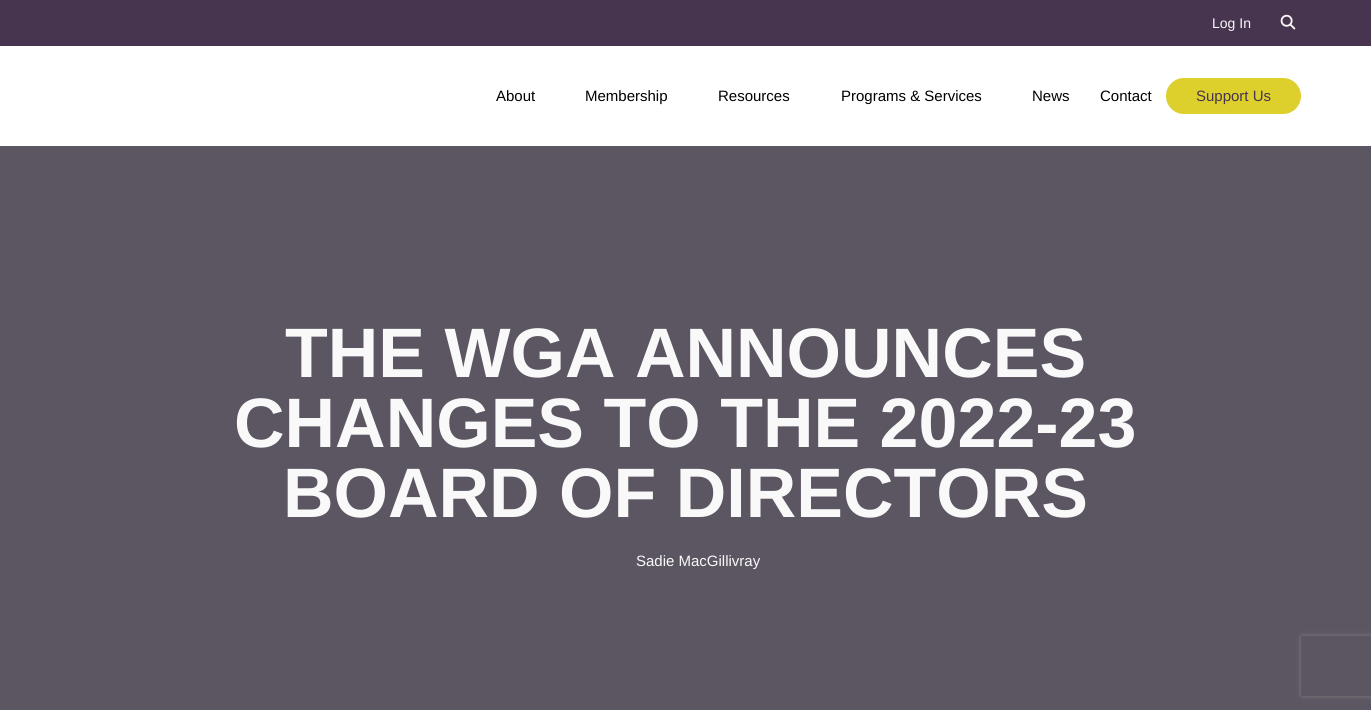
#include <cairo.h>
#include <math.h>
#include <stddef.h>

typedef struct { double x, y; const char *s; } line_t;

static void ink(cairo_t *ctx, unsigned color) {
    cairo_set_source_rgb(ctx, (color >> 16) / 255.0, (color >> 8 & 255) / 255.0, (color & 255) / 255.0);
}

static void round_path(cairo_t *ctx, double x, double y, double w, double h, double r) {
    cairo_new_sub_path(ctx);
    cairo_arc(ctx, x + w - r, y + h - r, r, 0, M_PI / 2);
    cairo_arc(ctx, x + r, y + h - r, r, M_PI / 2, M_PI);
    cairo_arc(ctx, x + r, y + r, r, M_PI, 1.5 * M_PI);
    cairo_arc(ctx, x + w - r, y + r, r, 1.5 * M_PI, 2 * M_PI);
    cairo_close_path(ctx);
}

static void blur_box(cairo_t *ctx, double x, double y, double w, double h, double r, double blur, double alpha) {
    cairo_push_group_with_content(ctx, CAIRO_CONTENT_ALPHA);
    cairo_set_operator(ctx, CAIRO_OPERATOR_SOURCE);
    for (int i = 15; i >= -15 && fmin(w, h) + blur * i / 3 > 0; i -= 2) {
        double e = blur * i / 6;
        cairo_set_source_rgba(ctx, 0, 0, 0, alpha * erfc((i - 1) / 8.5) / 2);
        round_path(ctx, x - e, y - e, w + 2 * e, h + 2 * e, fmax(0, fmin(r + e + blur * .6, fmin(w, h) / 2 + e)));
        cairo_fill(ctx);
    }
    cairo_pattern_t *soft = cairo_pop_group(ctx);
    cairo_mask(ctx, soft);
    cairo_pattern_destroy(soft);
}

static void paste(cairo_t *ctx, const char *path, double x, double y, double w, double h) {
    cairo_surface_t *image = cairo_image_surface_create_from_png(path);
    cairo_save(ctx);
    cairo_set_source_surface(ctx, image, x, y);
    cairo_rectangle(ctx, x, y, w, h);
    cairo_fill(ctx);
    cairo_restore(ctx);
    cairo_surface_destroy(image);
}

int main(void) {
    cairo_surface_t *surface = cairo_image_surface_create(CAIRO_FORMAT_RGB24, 1371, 710);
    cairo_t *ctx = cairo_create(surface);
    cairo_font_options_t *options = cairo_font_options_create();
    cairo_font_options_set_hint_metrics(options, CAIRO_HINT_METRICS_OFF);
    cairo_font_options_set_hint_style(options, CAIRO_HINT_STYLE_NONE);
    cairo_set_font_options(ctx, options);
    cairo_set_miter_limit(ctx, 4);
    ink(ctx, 0xFFFFFF);
    cairo_paint(ctx);
    ink(ctx, 0x47344E);
    cairo_rectangle(ctx, 0, 0, 1371, 46);
    cairo_fill(ctx);
    cairo_select_font_face(ctx, "Liberation Sans", CAIRO_FONT_SLANT_NORMAL, CAIRO_FONT_WEIGHT_NORMAL);
    cairo_set_font_size(ctx, 14);
    ink(ctx, 0xF9F9F9);
    cairo_move_to(ctx, 1212, 28);
    cairo_show_text(ctx, "Log In");
    paste(ctx, "media/1.png", 1280, 14, 16, 16);
    cairo_set_font_size(ctx, 15);
    ink(ctx, 0x000000);
    {
        static const line_t items[] = {
            {496, 101, "About"},
            {585, 101, "Membership"},
            {718, 101, "Resources"},
            {841, 101, "Programs & Services"},
            {1032, 101, "News"},
            {1100, 101, "Contact"},
        };
        for (size_t i = 0; i < sizeof items / sizeof *items; i++) {
            cairo_move_to(ctx, items[i].x, items[i].y);
            cairo_show_text(ctx, items[i].s);
        }
    }
    ink(ctx, 0xDDD02D);
    round_path(ctx, 1166, 78, 135, 36, 18);
    cairo_fill(ctx);
    ink(ctx, 0x47344E);
    cairo_move_to(ctx, 1196, 101);
    cairo_show_text(ctx, "Support Us");
    ink(ctx, 0x5C5562);
    cairo_rectangle(ctx, 0, 146, 1371, 564);
    cairo_fill(ctx);
    cairo_select_font_face(ctx, "Liberation Sans", CAIRO_FONT_SLANT_NORMAL, CAIRO_FONT_WEIGHT_BOLD);
    cairo_set_font_size(ctx, 70);
    ink(ctx, 0xF9F9F9);
    {
        static const line_t items[] = {
            {285, 377, "THE WGA ANNOUNCES"},
            {234, 447, "CHANGES TO THE 2022-23"},
            {283, 517, "BOARD OF DIRECTORS"},
        };
        for (size_t i = 0; i < sizeof items / sizeof *items; i++) {
            cairo_move_to(ctx, items[i].x, items[i].y);
            cairo_show_text(ctx, items[i].s);
        }
    }
    cairo_select_font_face(ctx, "Liberation Sans", CAIRO_FONT_SLANT_NORMAL, CAIRO_FONT_WEIGHT_NORMAL);
    cairo_set_font_size(ctx, 15);
    cairo_move_to(ctx, 636, 566);
    cairo_show_text(ctx, "Sadie MacGillivray");
    cairo_save(ctx);
    cairo_set_fill_rule(ctx, CAIRO_FILL_RULE_EVEN_ODD);
    cairo_new_path(ctx);
    cairo_move_to(ctx, 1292, 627);
    cairo_line_to(ctx, 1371, 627);
    cairo_line_to(ctx, 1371, 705);
    cairo_line_to(ctx, 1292, 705);
    cairo_close_path(ctx);
    cairo_move_to(ctx, 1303, 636);
    cairo_line_to(ctx, 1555, 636);
    cairo_curve_to(ctx, 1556, 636, 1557, 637, 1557, 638);
    cairo_line_to(ctx, 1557, 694);
    cairo_curve_to(ctx, 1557, 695, 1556, 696, 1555, 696);
    cairo_line_to(ctx, 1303, 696);
    cairo_curve_to(ctx, 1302, 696, 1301, 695, 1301, 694);
    cairo_line_to(ctx, 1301, 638);
    cairo_curve_to(ctx, 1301, 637, 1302, 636, 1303, 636);
    cairo_close_path(ctx);
    cairo_clip(ctx);
    ink(ctx, 0x808080);
    blur_box(ctx, 1301, 636, 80, 60, 2, 2.5, 1);
    cairo_restore(ctx);
    cairo_surface_write_to_png(surface, "image.png");
    cairo_font_options_destroy(options);
    cairo_destroy(ctx);
    cairo_surface_destroy(surface);
    return 0;
}
